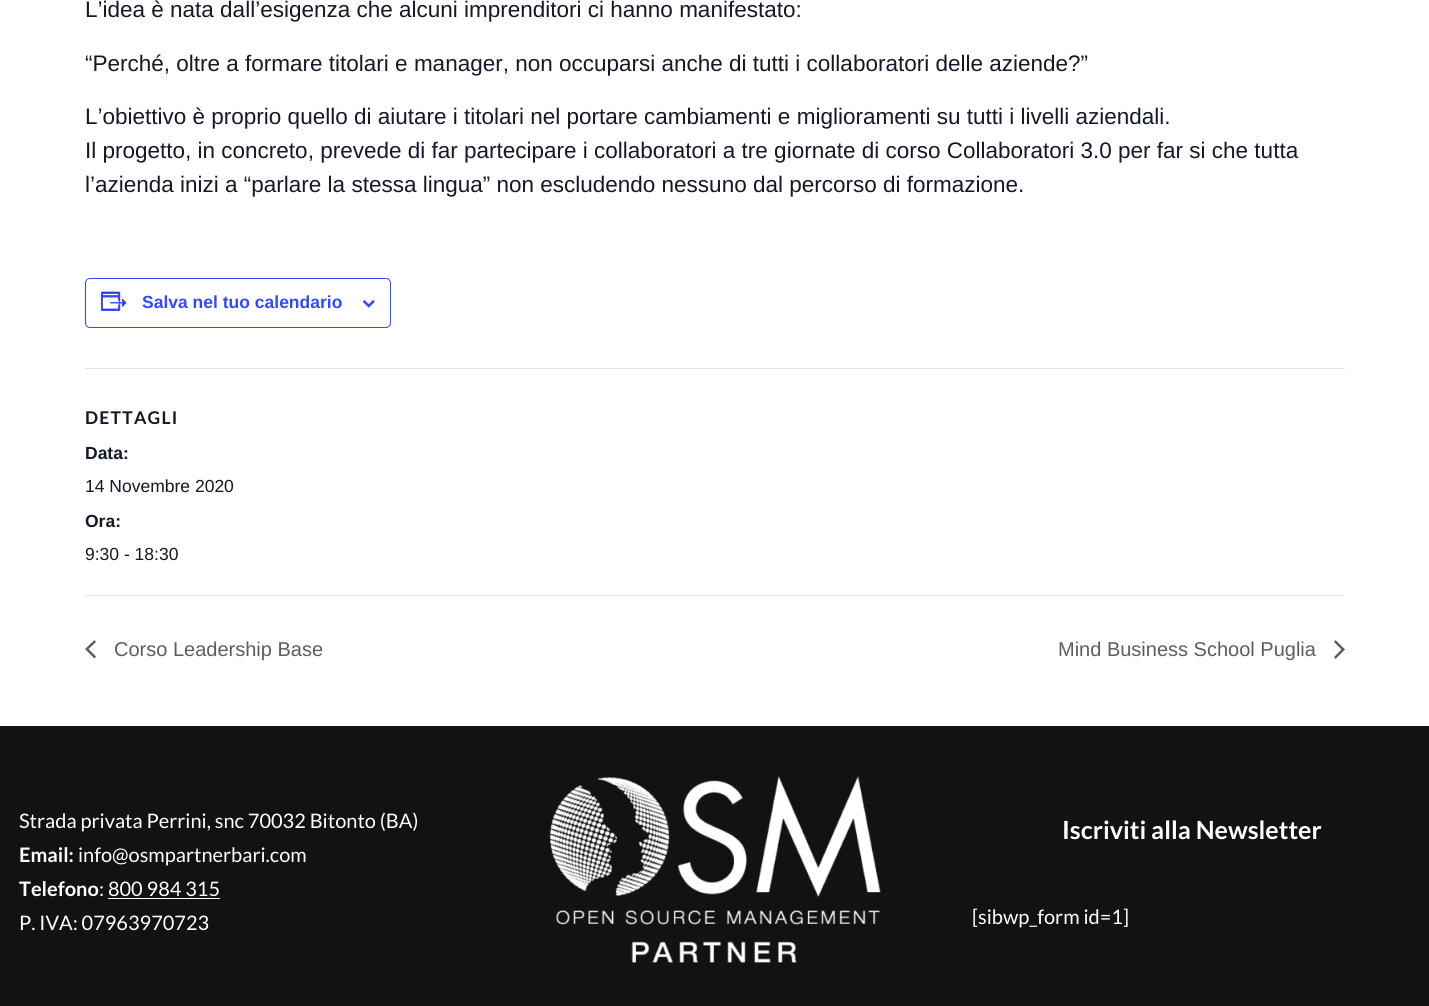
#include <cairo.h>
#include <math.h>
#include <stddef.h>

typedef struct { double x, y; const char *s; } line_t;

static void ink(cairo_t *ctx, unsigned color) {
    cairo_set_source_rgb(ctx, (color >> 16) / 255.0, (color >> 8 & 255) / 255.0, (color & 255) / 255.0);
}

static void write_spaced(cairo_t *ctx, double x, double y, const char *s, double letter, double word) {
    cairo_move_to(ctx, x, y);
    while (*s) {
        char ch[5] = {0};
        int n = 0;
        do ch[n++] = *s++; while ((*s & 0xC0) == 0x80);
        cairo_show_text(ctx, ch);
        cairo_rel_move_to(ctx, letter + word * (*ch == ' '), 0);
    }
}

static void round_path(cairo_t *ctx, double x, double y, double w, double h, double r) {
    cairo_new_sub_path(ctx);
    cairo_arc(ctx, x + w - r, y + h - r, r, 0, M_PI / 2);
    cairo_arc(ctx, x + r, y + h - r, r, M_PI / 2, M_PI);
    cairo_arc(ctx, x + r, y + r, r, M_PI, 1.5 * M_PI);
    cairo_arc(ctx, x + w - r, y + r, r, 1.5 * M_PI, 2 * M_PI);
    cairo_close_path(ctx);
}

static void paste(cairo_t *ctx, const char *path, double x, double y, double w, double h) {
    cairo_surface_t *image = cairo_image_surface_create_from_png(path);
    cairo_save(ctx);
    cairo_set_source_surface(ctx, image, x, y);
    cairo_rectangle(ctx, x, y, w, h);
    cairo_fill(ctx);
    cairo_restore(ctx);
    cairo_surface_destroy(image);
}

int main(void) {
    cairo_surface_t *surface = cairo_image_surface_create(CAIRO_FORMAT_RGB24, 1429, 1006);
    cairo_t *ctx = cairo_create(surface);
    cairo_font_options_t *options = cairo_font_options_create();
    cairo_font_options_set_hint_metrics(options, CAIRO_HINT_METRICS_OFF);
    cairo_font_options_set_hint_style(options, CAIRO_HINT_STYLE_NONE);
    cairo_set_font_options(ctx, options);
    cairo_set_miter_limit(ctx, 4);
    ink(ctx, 0xFFFFFF);
    cairo_paint(ctx);
    cairo_select_font_face(ctx, "Liberation Sans", CAIRO_FONT_SLANT_NORMAL, CAIRO_FONT_WEIGHT_NORMAL);
    cairo_set_font_size(ctx, 22.5);
    ink(ctx, 0x141827);
    {
        static const line_t items[] = {
            {85, 17, "L’idea è nata dall’esigenza che alcuni imprenditori ci hanno manifestato:"},
            {85, 71, "“Perché, oltre a formare titolari e manager, non occuparsi anche di tutti i collaboratori delle aziende?”"},
            {85, 124, "L’obiettivo è proprio quello di aiutare i titolari nel portare cambiamenti e miglioramenti su tutti i livelli aziendali."},
            {85, 158, "Il progetto, in concreto, prevede di far partecipare i collaboratori a tre giornate di corso Collaboratori 3.0 per far si che tutta"},
            {85, 192, "l’azienda inizi a “parlare la stessa lingua” non escludendo nessuno dal percorso di formazione."},
        };
        for (size_t i = 0; i < sizeof items / sizeof *items; i++) {
            cairo_move_to(ctx, items[i].x, items[i].y);
            cairo_show_text(ctx, items[i].s);
        }
    }
    round_path(ctx, 85.5, 278.5, 305, 49, 4.5);
    ink(ctx, 0x334AFF);
    cairo_set_line_width(ctx, 1);
    cairo_stroke(ctx);
    paste(ctx, "media/1.png", 101, 291, 26, 20);
    cairo_select_font_face(ctx, "Liberation Sans", CAIRO_FONT_SLANT_NORMAL, CAIRO_FONT_WEIGHT_BOLD);
    cairo_set_font_size(ctx, 17.5);
    cairo_move_to(ctx, 142, 308);
    cairo_show_text(ctx, "Salva nel tuo calendario");
    paste(ctx, "media/2.png", 363, 300, 12, 8);
    ink(ctx, 0xE4E4E4);
    cairo_rectangle(ctx, 85, 368, 1260, 1);
    cairo_fill(ctx);
    cairo_select_font_face(ctx, "Lato", CAIRO_FONT_SLANT_NORMAL, CAIRO_FONT_WEIGHT_BOLD);
    ink(ctx, 0x141827);
    write_spaced(ctx, 85, 424, "DETTAGLI", 1.25, 0);
    cairo_select_font_face(ctx, "Liberation Sans", CAIRO_FONT_SLANT_NORMAL, CAIRO_FONT_WEIGHT_BOLD);
    cairo_move_to(ctx, 85, 459);
    cairo_show_text(ctx, "Data:");
    cairo_select_font_face(ctx, "Liberation Sans", CAIRO_FONT_SLANT_NORMAL, CAIRO_FONT_WEIGHT_NORMAL);
    cairo_move_to(ctx, 85, 492);
    cairo_show_text(ctx, "14 Novembre 2020");
    cairo_select_font_face(ctx, "Liberation Sans", CAIRO_FONT_SLANT_NORMAL, CAIRO_FONT_WEIGHT_BOLD);
    cairo_move_to(ctx, 85, 527);
    cairo_show_text(ctx, "Ora:");
    cairo_select_font_face(ctx, "Liberation Sans", CAIRO_FONT_SLANT_NORMAL, CAIRO_FONT_WEIGHT_NORMAL);
    cairo_move_to(ctx, 85, 560);
    cairo_show_text(ctx, "9:30 - 18:30");
    ink(ctx, 0xE4E4E4);
    cairo_rectangle(ctx, 85, 595, 1260, 1);
    cairo_fill(ctx);
    ink(ctx, 0x5D5D5D);
    cairo_new_path(ctx);
    cairo_move_to(ctx, 96, 656.5);
    cairo_line_to(ctx, 94.5, 658.5);
    cairo_line_to(ctx, 85, 649);
    cairo_line_to(ctx, 94.5, 640);
    cairo_line_to(ctx, 96, 642);
    cairo_line_to(ctx, 88.5, 649);
    cairo_close_path(ctx);
    cairo_fill(ctx);
    cairo_set_font_size(ctx, 20);
    cairo_move_to(ctx, 114, 656);
    cairo_show_text(ctx, "Corso Leadership Base");
    cairo_move_to(ctx, 1058, 656);
    cairo_show_text(ctx, "Mind Business School Puglia");
    cairo_new_path(ctx);
    cairo_move_to(ctx, 1334, 642);
    cairo_line_to(ctx, 1335.5, 640);
    cairo_line_to(ctx, 1345, 649.5);
    cairo_line_to(ctx, 1335.5, 659);
    cairo_line_to(ctx, 1334, 657);
    cairo_line_to(ctx, 1341.5, 649.5);
    cairo_close_path(ctx);
    cairo_fill(ctx);
    ink(ctx, 0x121212);
    cairo_rectangle(ctx, 0, 726, 1429, 280);
    cairo_fill(ctx);
    cairo_select_font_face(ctx, "Lato", CAIRO_FONT_SLANT_NORMAL, CAIRO_FONT_WEIGHT_NORMAL);
    ink(ctx, 0xFFFFFF);
    cairo_move_to(ctx, 19, 828);
    cairo_show_text(ctx, "Strada privata Perrini, snc 70032 Bitonto (BA)");
    cairo_select_font_face(ctx, "Lato", CAIRO_FONT_SLANT_NORMAL, CAIRO_FONT_WEIGHT_BOLD);
    cairo_move_to(ctx, 19, 862);
    cairo_show_text(ctx, "Email:");
    cairo_select_font_face(ctx, "Lato", CAIRO_FONT_SLANT_NORMAL, CAIRO_FONT_WEIGHT_NORMAL);
    cairo_move_to(ctx, 78, 862);
    cairo_show_text(ctx, "info@osmpartnerbari.com");
    cairo_select_font_face(ctx, "Lato", CAIRO_FONT_SLANT_NORMAL, CAIRO_FONT_WEIGHT_BOLD);
    cairo_move_to(ctx, 19, 896);
    cairo_show_text(ctx, "Telefono");
    cairo_select_font_face(ctx, "Lato", CAIRO_FONT_SLANT_NORMAL, CAIRO_FONT_WEIGHT_NORMAL);
    cairo_move_to(ctx, 99, 896);
    cairo_show_text(ctx, ": 800 984 315");
    cairo_rectangle(ctx, 108, 898, 112, 1);
    cairo_fill(ctx);
    cairo_move_to(ctx, 19, 930);
    cairo_show_text(ctx, "P. IVA: 07963970723");
    paste(ctx, "media/3.png", 549, 776, 332, 187);
    cairo_select_font_face(ctx, "Lato", CAIRO_FONT_SLANT_NORMAL, CAIRO_FONT_WEIGHT_BOLD);
    cairo_set_font_size(ctx, 25);
    cairo_move_to(ctx, 1062, 839);
    cairo_show_text(ctx, "Iscriviti alla Newsletter");
    cairo_select_font_face(ctx, "Lato", CAIRO_FONT_SLANT_NORMAL, CAIRO_FONT_WEIGHT_NORMAL);
    cairo_set_font_size(ctx, 20);
    cairo_move_to(ctx, 972, 924);
    cairo_show_text(ctx, "[sibwp_form id=1]");
    cairo_surface_write_to_png(surface, "image.png");
    cairo_font_options_destroy(options);
    cairo_destroy(ctx);
    cairo_surface_destroy(surface);
    return 0;
}
